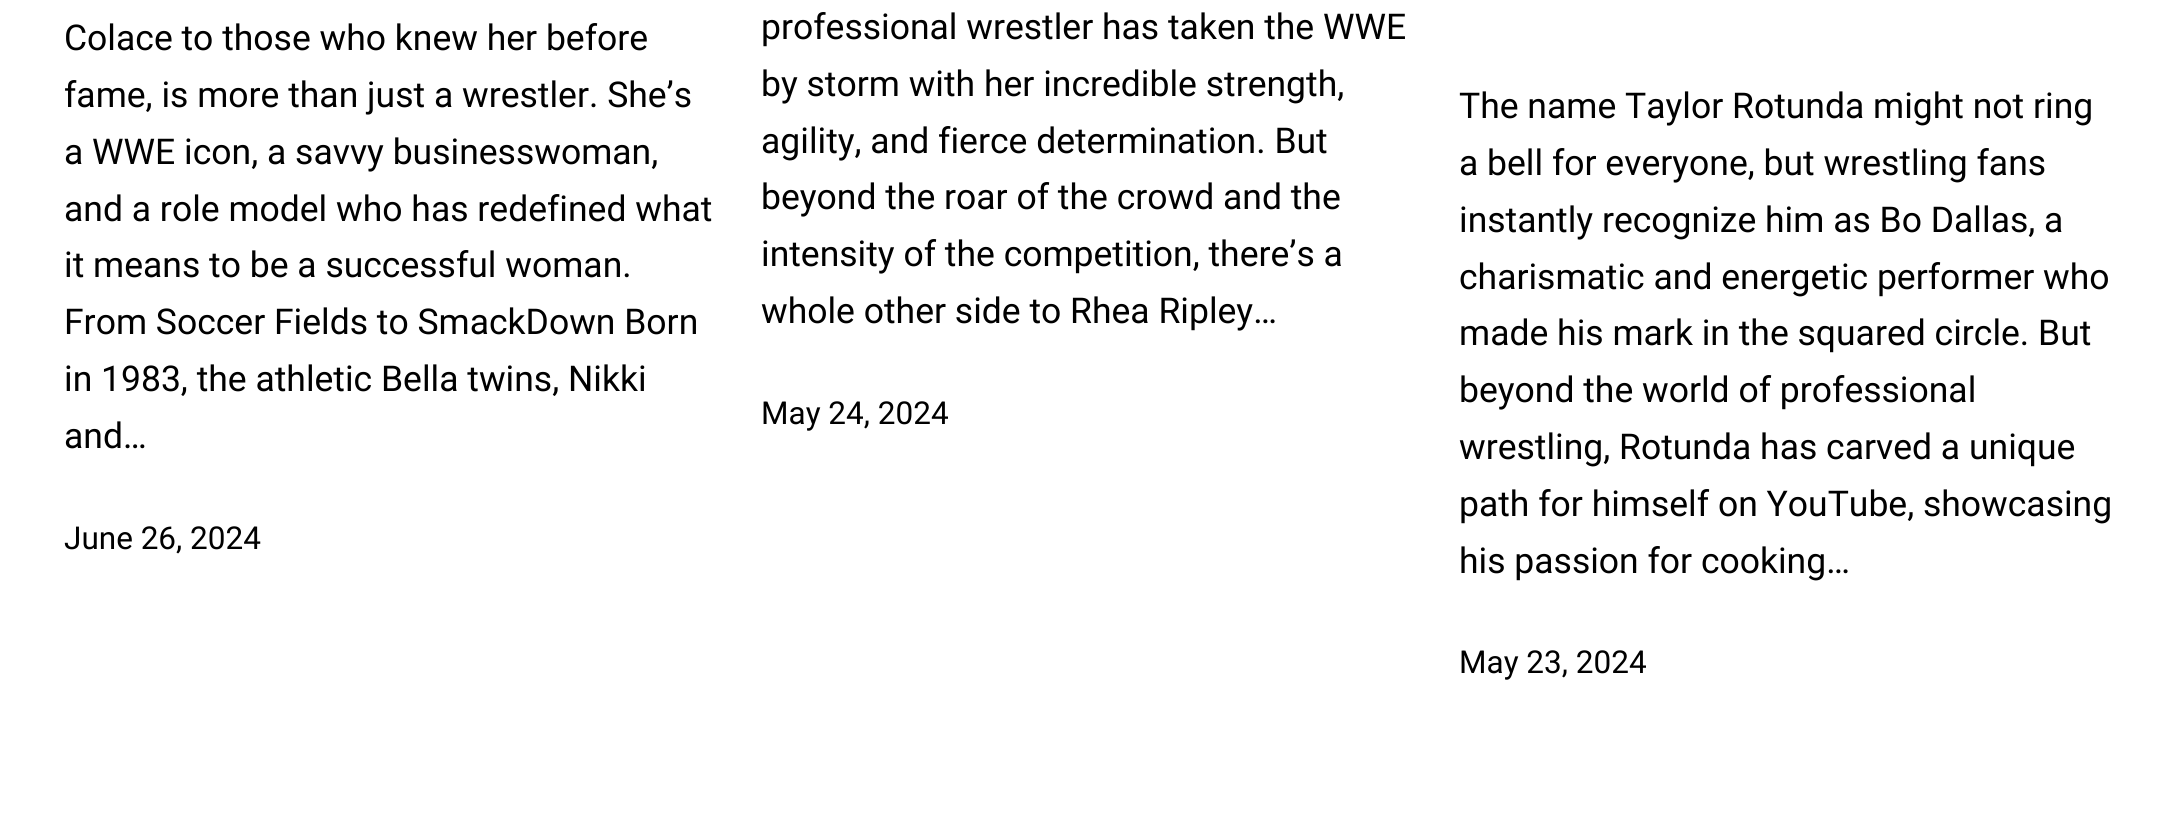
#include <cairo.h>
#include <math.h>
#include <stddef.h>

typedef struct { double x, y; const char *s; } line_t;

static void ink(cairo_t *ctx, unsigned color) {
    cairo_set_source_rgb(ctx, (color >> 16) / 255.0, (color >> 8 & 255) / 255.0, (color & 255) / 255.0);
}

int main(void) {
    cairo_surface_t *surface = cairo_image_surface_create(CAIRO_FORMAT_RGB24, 2176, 818);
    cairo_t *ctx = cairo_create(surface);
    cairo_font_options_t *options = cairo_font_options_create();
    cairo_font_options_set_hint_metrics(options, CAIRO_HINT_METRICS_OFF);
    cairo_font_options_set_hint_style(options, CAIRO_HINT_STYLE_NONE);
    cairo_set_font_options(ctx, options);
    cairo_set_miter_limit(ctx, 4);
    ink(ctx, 0xFFFFFF);
    cairo_paint(ctx);
    cairo_select_font_face(ctx, "Roboto", CAIRO_FONT_SLANT_NORMAL, CAIRO_FONT_WEIGHT_NORMAL);
    cairo_set_font_size(ctx, 35.5);
    ink(ctx, 0x000000);
    {
        static const line_t items[] = {
            {64, 50, "Colace to those who knew her before"},
            {64, 107, "fame, is more than just a wrestler. She’s"},
            {64, 164, "a WWE icon, a savvy businesswoman,"},
            {64, 221, "and a role model who has redefined what"},
            {64, 277, "it means to be a successful woman."},
            {64, 334, "From Soccer Fields to SmackDown Born"},
            {64, 391, "in 1983, the athletic Bella twins, Nikki"},
            {64, 448, "and…"},
        };
        for (size_t i = 0; i < sizeof items / sizeof *items; i++) {
            cairo_move_to(ctx, items[i].x, items[i].y);
            cairo_show_text(ctx, items[i].s);
        }
    }
    cairo_set_font_size(ctx, 31.5);
    cairo_move_to(ctx, 64, 549);
    cairo_show_text(ctx, "June 26, 2024");
    cairo_set_font_size(ctx, 35.5);
    {
        static const line_t items[] = {
            {761, 39, "professional wrestler has taken the WWE"},
            {761, 96, "by storm with her incredible strength,"},
            {761, 153, "agility, and fierce determination. But"},
            {761, 209, "beyond the roar of the crowd and the"},
            {761, 266, "intensity of the competition, there’s a"},
            {761, 323, "whole other side to Rhea Ripley…"},
        };
        for (size_t i = 0; i < sizeof items / sizeof *items; i++) {
            cairo_move_to(ctx, items[i].x, items[i].y);
            cairo_show_text(ctx, items[i].s);
        }
    }
    cairo_set_font_size(ctx, 31.5);
    cairo_move_to(ctx, 761, 424);
    cairo_show_text(ctx, "May 24, 2024");
    cairo_set_font_size(ctx, 35.5);
    {
        static const line_t items[] = {
            {1459, 118, "The name Taylor Rotunda might not ring"},
            {1459, 175, "a bell for everyone, but wrestling fans"},
            {1459, 232, "instantly recognize him as Bo Dallas, a"},
            {1459, 289, "charismatic and energetic performer who"},
            {1459, 345, "made his mark in the squared circle. But"},
            {1459, 402, "beyond the world of professional"},
            {1459, 459, "wrestling, Rotunda has carved a unique"},
            {1459, 516, "path for himself on YouTube, showcasing"},
            {1459, 573, "his passion for cooking…"},
        };
        for (size_t i = 0; i < sizeof items / sizeof *items; i++) {
            cairo_move_to(ctx, items[i].x, items[i].y);
            cairo_show_text(ctx, items[i].s);
        }
    }
    cairo_set_font_size(ctx, 31.5);
    cairo_move_to(ctx, 1459, 673);
    cairo_show_text(ctx, "May 23, 2024");
    cairo_surface_write_to_png(surface, "image.png");
    cairo_font_options_destroy(options);
    cairo_destroy(ctx);
    cairo_surface_destroy(surface);
    return 0;
}
